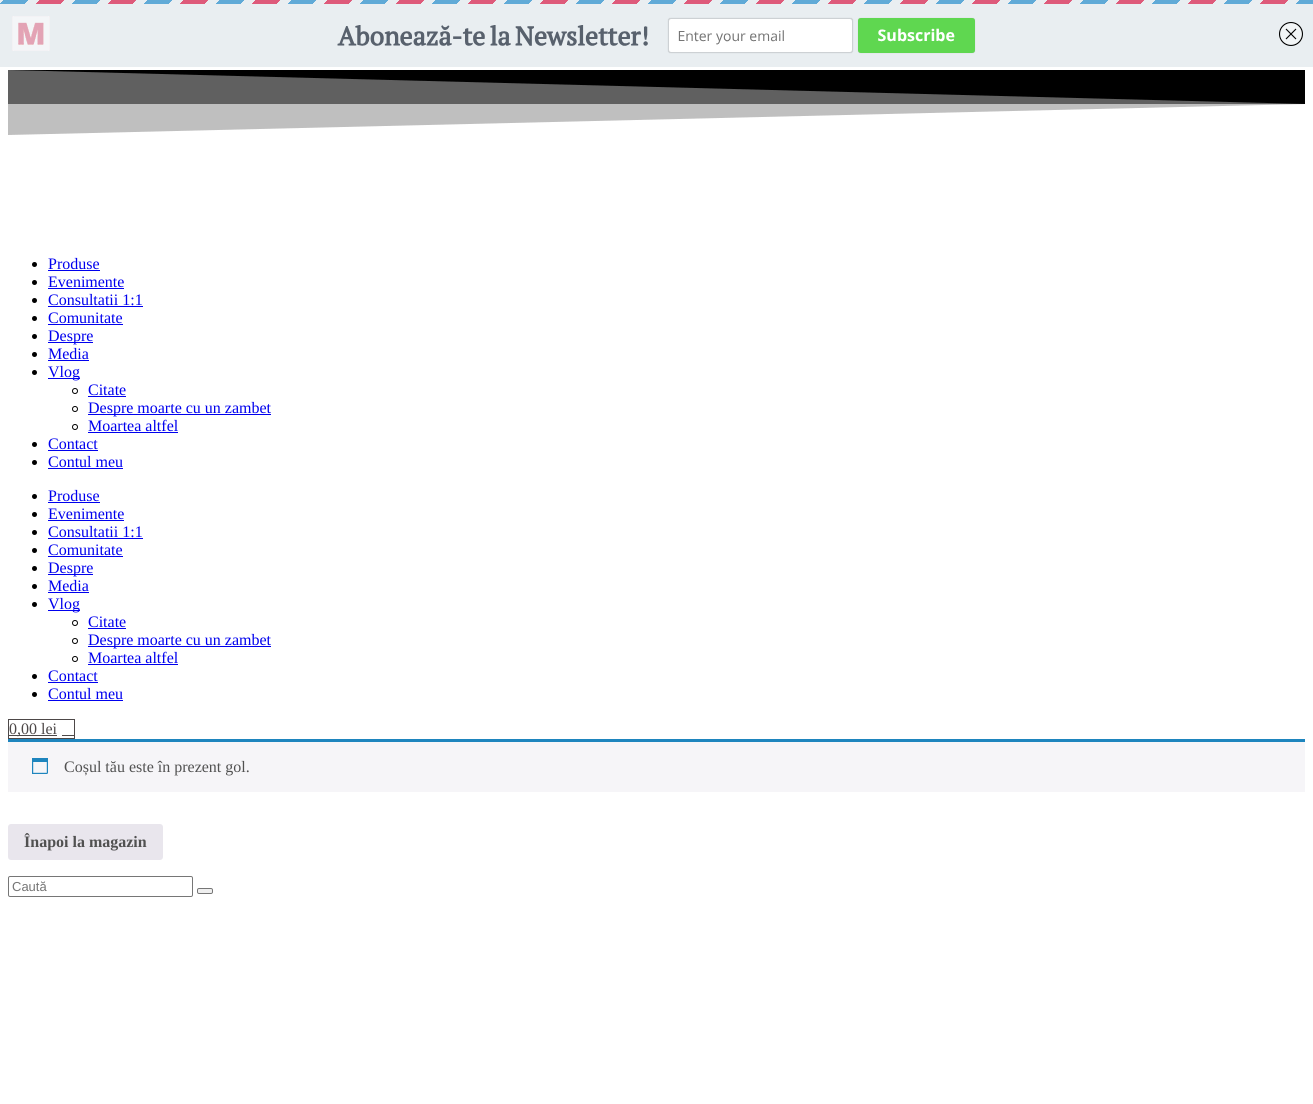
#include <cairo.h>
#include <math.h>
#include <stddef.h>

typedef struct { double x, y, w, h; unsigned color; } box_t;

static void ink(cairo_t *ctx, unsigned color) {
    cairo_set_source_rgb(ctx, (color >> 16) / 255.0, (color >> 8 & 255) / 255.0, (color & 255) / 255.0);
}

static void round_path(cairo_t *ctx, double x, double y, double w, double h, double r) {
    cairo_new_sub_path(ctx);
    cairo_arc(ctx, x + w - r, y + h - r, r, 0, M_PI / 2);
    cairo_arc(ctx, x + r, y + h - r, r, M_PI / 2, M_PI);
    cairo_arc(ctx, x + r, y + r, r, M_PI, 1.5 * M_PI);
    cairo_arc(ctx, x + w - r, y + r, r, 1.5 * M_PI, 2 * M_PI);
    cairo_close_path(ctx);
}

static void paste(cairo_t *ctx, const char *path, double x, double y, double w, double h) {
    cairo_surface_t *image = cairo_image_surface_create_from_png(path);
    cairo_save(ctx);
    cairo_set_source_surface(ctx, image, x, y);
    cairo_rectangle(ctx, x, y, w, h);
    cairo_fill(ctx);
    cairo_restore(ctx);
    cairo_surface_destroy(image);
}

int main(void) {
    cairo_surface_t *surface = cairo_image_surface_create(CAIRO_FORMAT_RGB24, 1313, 1104);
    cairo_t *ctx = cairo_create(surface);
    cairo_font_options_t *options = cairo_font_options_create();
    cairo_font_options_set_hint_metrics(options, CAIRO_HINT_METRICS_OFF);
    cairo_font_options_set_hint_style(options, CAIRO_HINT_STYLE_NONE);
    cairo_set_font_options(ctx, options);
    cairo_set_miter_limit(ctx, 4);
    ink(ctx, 0xFFFFFF);
    cairo_paint(ctx);
    ink(ctx, 0x808080);
    cairo_rectangle(ctx, 8, 70, 1296, 34);
    cairo_fill(ctx);
    paste(ctx, "media/1.png", 0, 0, 1313, 67);
    ink(ctx, 0x000000);
    cairo_new_path(ctx);
    cairo_move_to(ctx, 8, 70);
    cairo_line_to(ctx, 1305, 70);
    cairo_line_to(ctx, 1305, 104);
    cairo_close_path(ctx);
    cairo_fill(ctx);
    cairo_set_source_rgba(ctx, 0, 0, 0, 0.25);
    cairo_new_path(ctx);
    cairo_move_to(ctx, 1305, 70);
    cairo_line_to(ctx, 8, 70);
    cairo_line_to(ctx, 8, 135);
    cairo_line_to(ctx, 1305, 104);
    cairo_close_path(ctx);
    cairo_fill(ctx);
    ink(ctx, 0x000000);
    cairo_arc(ctx, 34.5, 264.5, 2.5, 0, 2 * M_PI);
    cairo_fill(ctx);
    cairo_select_font_face(ctx, "Liberation Serif", CAIRO_FONT_SLANT_NORMAL, CAIRO_FONT_WEIGHT_NORMAL);
    cairo_set_font_size(ctx, 16);
    ink(ctx, 0x0000EE);
    cairo_move_to(ctx, 48, 269);
    cairo_show_text(ctx, "Produse");
    cairo_rectangle(ctx, 48, 270, 52, 1);
    cairo_fill(ctx);
    ink(ctx, 0x000000);
    cairo_arc(ctx, 34.5, 282.5, 2.5, 0, 2 * M_PI);
    cairo_fill(ctx);
    ink(ctx, 0x0000EE);
    cairo_move_to(ctx, 48, 287);
    cairo_show_text(ctx, "Evenimente");
    cairo_rectangle(ctx, 48, 288, 76, 1);
    cairo_fill(ctx);
    ink(ctx, 0x000000);
    cairo_arc(ctx, 34.5, 300.5, 2.5, 0, 2 * M_PI);
    cairo_fill(ctx);
    ink(ctx, 0x0000EE);
    cairo_move_to(ctx, 48, 305);
    cairo_show_text(ctx, "Consultatii 1:1");
    cairo_rectangle(ctx, 48, 306, 95, 1);
    cairo_fill(ctx);
    ink(ctx, 0x000000);
    cairo_arc(ctx, 34.5, 318.5, 2.5, 0, 2 * M_PI);
    cairo_fill(ctx);
    ink(ctx, 0x0000EE);
    cairo_move_to(ctx, 48, 323);
    cairo_show_text(ctx, "Comunitate");
    cairo_rectangle(ctx, 48, 324, 75, 1);
    cairo_fill(ctx);
    ink(ctx, 0x000000);
    cairo_arc(ctx, 34.5, 336.5, 2.5, 0, 2 * M_PI);
    cairo_fill(ctx);
    ink(ctx, 0x0000EE);
    cairo_rectangle(ctx, 48, 342, 45, 1);
    cairo_fill(ctx);
    cairo_move_to(ctx, 48, 341);
    cairo_show_text(ctx, "Despre");
    ink(ctx, 0x000000);
    cairo_new_path(ctx);
    cairo_arc(ctx, 34.5, 354.5, 2.5, 0, 2 * M_PI);
    cairo_fill(ctx);
    ink(ctx, 0x0000EE);
    cairo_move_to(ctx, 48, 359);
    cairo_show_text(ctx, "Media");
    cairo_rectangle(ctx, 48, 360, 41, 1);
    cairo_fill(ctx);
    ink(ctx, 0x000000);
    cairo_arc(ctx, 34.5, 372.5, 2.5, 0, 2 * M_PI);
    cairo_fill(ctx);
    ink(ctx, 0x0000EE);
    cairo_rectangle(ctx, 48, 378, 32, 1);
    cairo_fill(ctx);
    cairo_move_to(ctx, 48, 377);
    cairo_show_text(ctx, "Vlog");
    cairo_new_path(ctx);
    cairo_arc(ctx, 75, 391, 2.5, 0, 2 * M_PI);
    ink(ctx, 0x000000);
    cairo_set_line_width(ctx, 1);
    cairo_stroke(ctx);
    ink(ctx, 0x0000EE);
    cairo_move_to(ctx, 88, 395);
    cairo_show_text(ctx, "Citate");
    cairo_rectangle(ctx, 88, 396, 38, 1);
    cairo_fill(ctx);
    cairo_arc(ctx, 75, 409, 2.5, 0, 2 * M_PI);
    ink(ctx, 0x000000);
    cairo_stroke(ctx);
    ink(ctx, 0x0000EE);
    cairo_rectangle(ctx, 88, 414, 183, 1);
    cairo_fill(ctx);
    cairo_move_to(ctx, 88, 413);
    cairo_show_text(ctx, "Despre moarte cu un zambet");
    cairo_new_path(ctx);
    cairo_arc(ctx, 75, 427, 2.5, 0, 2 * M_PI);
    ink(ctx, 0x000000);
    cairo_stroke(ctx);
    ink(ctx, 0x0000EE);
    cairo_move_to(ctx, 88, 431);
    cairo_show_text(ctx, "Moartea altfel");
    cairo_rectangle(ctx, 88, 432, 90, 1);
    cairo_fill(ctx);
    ink(ctx, 0x000000);
    cairo_arc(ctx, 34.5, 444.5, 2.5, 0, 2 * M_PI);
    cairo_fill(ctx);
    ink(ctx, 0x0000EE);
    cairo_move_to(ctx, 48, 449);
    cairo_show_text(ctx, "Contact");
    cairo_rectangle(ctx, 48, 450, 50, 1);
    cairo_fill(ctx);
    ink(ctx, 0x000000);
    cairo_arc(ctx, 34.5, 462.5, 2.5, 0, 2 * M_PI);
    cairo_fill(ctx);
    ink(ctx, 0x0000EE);
    cairo_move_to(ctx, 48, 467);
    cairo_show_text(ctx, "Contul meu");
    cairo_rectangle(ctx, 48, 468, 75, 1);
    cairo_fill(ctx);
    ink(ctx, 0x000000);
    cairo_arc(ctx, 34.5, 496.5, 2.5, 0, 2 * M_PI);
    cairo_fill(ctx);
    ink(ctx, 0x0000EE);
    cairo_move_to(ctx, 48, 501);
    cairo_show_text(ctx, "Produse");
    cairo_rectangle(ctx, 48, 502, 52, 1);
    cairo_fill(ctx);
    ink(ctx, 0x000000);
    cairo_arc(ctx, 34.5, 514.5, 2.5, 0, 2 * M_PI);
    cairo_fill(ctx);
    ink(ctx, 0x0000EE);
    cairo_move_to(ctx, 48, 519);
    cairo_show_text(ctx, "Evenimente");
    cairo_rectangle(ctx, 48, 520, 76, 1);
    cairo_fill(ctx);
    ink(ctx, 0x000000);
    cairo_arc(ctx, 34.5, 532.5, 2.5, 0, 2 * M_PI);
    cairo_fill(ctx);
    ink(ctx, 0x0000EE);
    cairo_move_to(ctx, 48, 537);
    cairo_show_text(ctx, "Consultatii 1:1");
    cairo_rectangle(ctx, 48, 538, 95, 1);
    cairo_fill(ctx);
    ink(ctx, 0x000000);
    cairo_arc(ctx, 34.5, 550.5, 2.5, 0, 2 * M_PI);
    cairo_fill(ctx);
    ink(ctx, 0x0000EE);
    cairo_move_to(ctx, 48, 555);
    cairo_show_text(ctx, "Comunitate");
    cairo_rectangle(ctx, 48, 556, 75, 1);
    cairo_fill(ctx);
    ink(ctx, 0x000000);
    cairo_arc(ctx, 34.5, 568.5, 2.5, 0, 2 * M_PI);
    cairo_fill(ctx);
    ink(ctx, 0x0000EE);
    cairo_rectangle(ctx, 48, 574, 45, 1);
    cairo_fill(ctx);
    cairo_move_to(ctx, 48, 573);
    cairo_show_text(ctx, "Despre");
    ink(ctx, 0x000000);
    cairo_new_path(ctx);
    cairo_arc(ctx, 34.5, 586.5, 2.5, 0, 2 * M_PI);
    cairo_fill(ctx);
    ink(ctx, 0x0000EE);
    cairo_move_to(ctx, 48, 591);
    cairo_show_text(ctx, "Media");
    cairo_rectangle(ctx, 48, 592, 41, 1);
    cairo_fill(ctx);
    ink(ctx, 0x000000);
    cairo_arc(ctx, 34.5, 604.5, 2.5, 0, 2 * M_PI);
    cairo_fill(ctx);
    ink(ctx, 0x0000EE);
    cairo_rectangle(ctx, 48, 610, 32, 1);
    cairo_fill(ctx);
    cairo_move_to(ctx, 48, 609);
    cairo_show_text(ctx, "Vlog");
    cairo_new_path(ctx);
    cairo_arc(ctx, 75, 623, 2.5, 0, 2 * M_PI);
    ink(ctx, 0x000000);
    cairo_stroke(ctx);
    ink(ctx, 0x0000EE);
    cairo_move_to(ctx, 88, 627);
    cairo_show_text(ctx, "Citate");
    cairo_rectangle(ctx, 88, 628, 38, 1);
    cairo_fill(ctx);
    cairo_arc(ctx, 75, 641, 2.5, 0, 2 * M_PI);
    ink(ctx, 0x000000);
    cairo_stroke(ctx);
    ink(ctx, 0x0000EE);
    cairo_rectangle(ctx, 88, 646, 183, 1);
    cairo_fill(ctx);
    cairo_move_to(ctx, 88, 645);
    cairo_show_text(ctx, "Despre moarte cu un zambet");
    cairo_new_path(ctx);
    cairo_arc(ctx, 75, 659, 2.5, 0, 2 * M_PI);
    ink(ctx, 0x000000);
    cairo_stroke(ctx);
    ink(ctx, 0x0000EE);
    cairo_move_to(ctx, 88, 663);
    cairo_show_text(ctx, "Moartea altfel");
    cairo_rectangle(ctx, 88, 664, 90, 1);
    cairo_fill(ctx);
    ink(ctx, 0x000000);
    cairo_arc(ctx, 34.5, 676.5, 2.5, 0, 2 * M_PI);
    cairo_fill(ctx);
    ink(ctx, 0x0000EE);
    cairo_move_to(ctx, 48, 681);
    cairo_show_text(ctx, "Contact");
    cairo_rectangle(ctx, 48, 682, 50, 1);
    cairo_fill(ctx);
    ink(ctx, 0x000000);
    cairo_arc(ctx, 34.5, 694.5, 2.5, 0, 2 * M_PI);
    cairo_fill(ctx);
    ink(ctx, 0x0000EE);
    cairo_move_to(ctx, 48, 699);
    cairo_show_text(ctx, "Contul meu");
    cairo_rectangle(ctx, 48, 700, 75, 1);
    cairo_fill(ctx);
    cairo_rectangle(ctx, 8.5, 719.5, 66, 19);
    ink(ctx, 0x4D4848);
    cairo_stroke(ctx);
    cairo_rectangle(ctx, 9, 735, 48, 1);
    cairo_fill(ctx);
    cairo_move_to(ctx, 9, 734);
    cairo_show_text(ctx, "0,00 lei");
    {
        static const box_t items[] = {
            {62, 735, 12, 1, 0x4D4848},
            {8, 742, 1297, 50, 0xF6F5F8},
            {8, 739, 1297, 3, 0x1E85BE},
        };
        for (size_t i = 0; i < sizeof items / sizeof *items; i++) {
            ink(ctx, items[i].color);
            cairo_rectangle(ctx, items[i].x, items[i].y, items[i].w, items[i].h);
            cairo_fill(ctx);
        }
    }
    paste(ctx, "media/2.png", 32, 758, 16, 16);
    ink(ctx, 0x515151);
    cairo_move_to(ctx, 64, 772);
    cairo_show_text(ctx, "Coșul tău este în prezent gol.");
    ink(ctx, 0xE9E6ED);
    round_path(ctx, 8, 824, 155, 36, 3);
    cairo_fill(ctx);
    cairo_select_font_face(ctx, "Liberation Serif", CAIRO_FONT_SLANT_NORMAL, CAIRO_FONT_WEIGHT_BOLD);
    ink(ctx, 0x515151);
    cairo_move_to(ctx, 24, 847);
    cairo_show_text(ctx, "Înapoi la magazin");
    round_path(ctx, 8.5, 876.5, 184, 20, 1.5);
    ink(ctx, 0x767676);
    cairo_stroke(ctx);
    cairo_select_font_face(ctx, "Liberation Sans", CAIRO_FONT_SLANT_NORMAL, CAIRO_FONT_WEIGHT_NORMAL);
    cairo_set_font_size(ctx, 13);
    ink(ctx, 0x757575);
    cairo_move_to(ctx, 12, 891);
    cairo_show_text(ctx, "Caută");
    ink(ctx, 0xEFEFEF);
    round_path(ctx, 197.5, 888.5, 15, 5, 1.5);
    cairo_fill_preserve(ctx);
    ink(ctx, 0x767676);
    cairo_stroke(ctx);
    cairo_surface_write_to_png(surface, "image.png");
    cairo_font_options_destroy(options);
    cairo_destroy(ctx);
    cairo_surface_destroy(surface);
    return 0;
}
